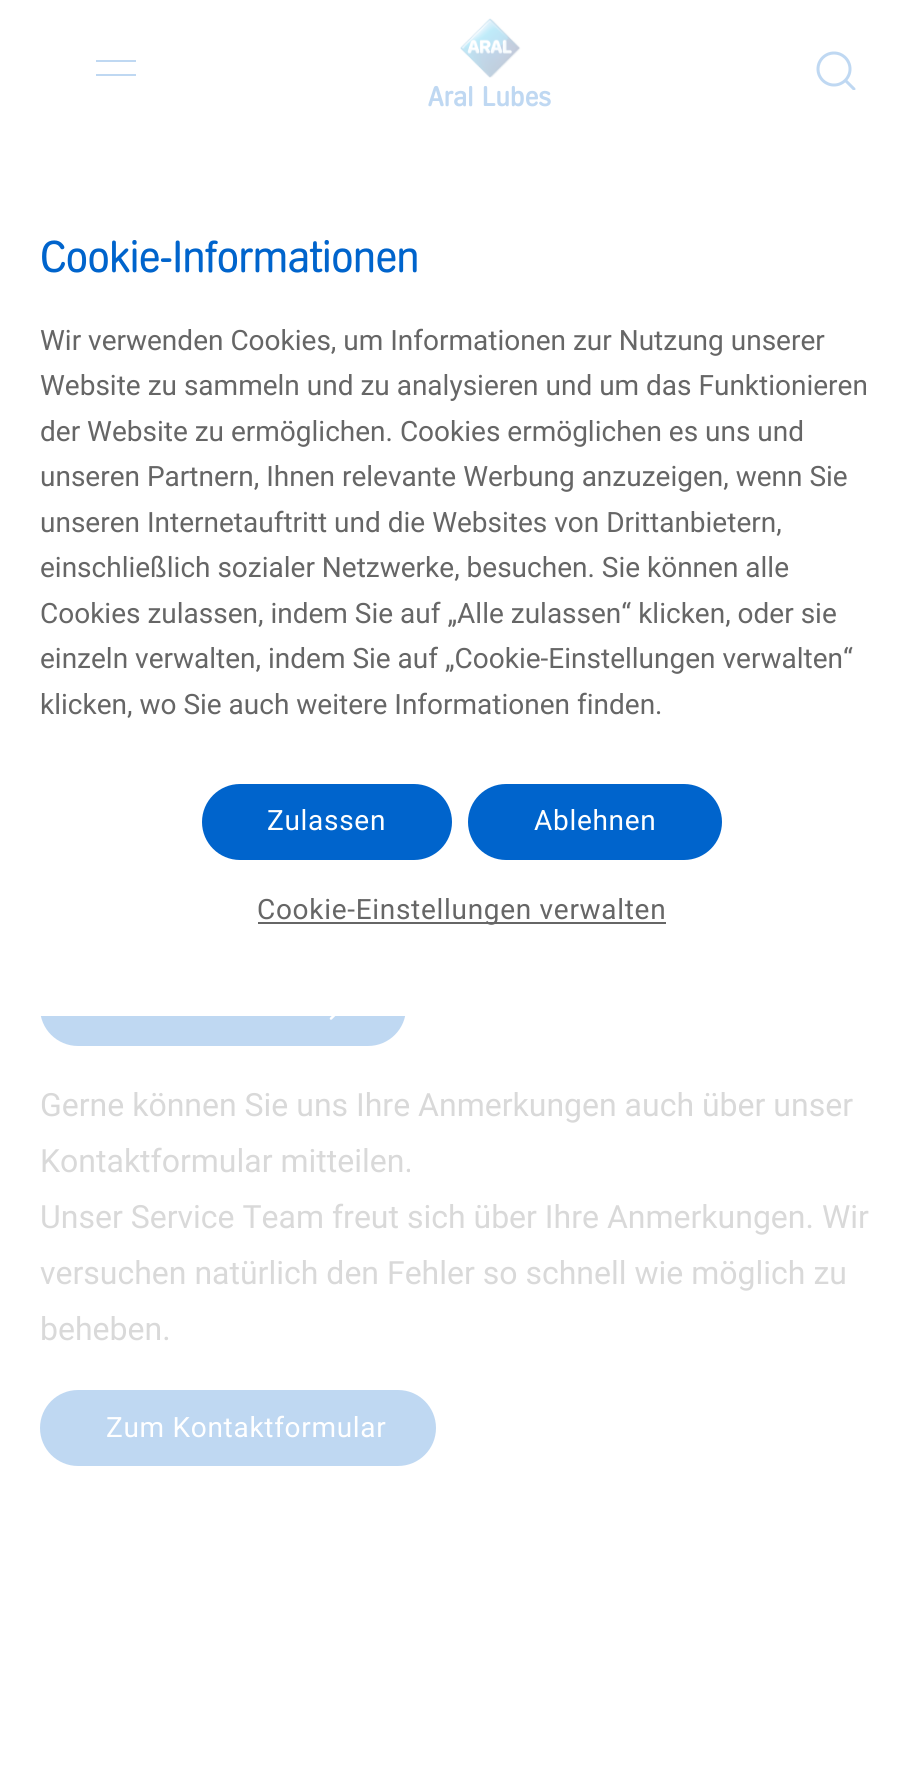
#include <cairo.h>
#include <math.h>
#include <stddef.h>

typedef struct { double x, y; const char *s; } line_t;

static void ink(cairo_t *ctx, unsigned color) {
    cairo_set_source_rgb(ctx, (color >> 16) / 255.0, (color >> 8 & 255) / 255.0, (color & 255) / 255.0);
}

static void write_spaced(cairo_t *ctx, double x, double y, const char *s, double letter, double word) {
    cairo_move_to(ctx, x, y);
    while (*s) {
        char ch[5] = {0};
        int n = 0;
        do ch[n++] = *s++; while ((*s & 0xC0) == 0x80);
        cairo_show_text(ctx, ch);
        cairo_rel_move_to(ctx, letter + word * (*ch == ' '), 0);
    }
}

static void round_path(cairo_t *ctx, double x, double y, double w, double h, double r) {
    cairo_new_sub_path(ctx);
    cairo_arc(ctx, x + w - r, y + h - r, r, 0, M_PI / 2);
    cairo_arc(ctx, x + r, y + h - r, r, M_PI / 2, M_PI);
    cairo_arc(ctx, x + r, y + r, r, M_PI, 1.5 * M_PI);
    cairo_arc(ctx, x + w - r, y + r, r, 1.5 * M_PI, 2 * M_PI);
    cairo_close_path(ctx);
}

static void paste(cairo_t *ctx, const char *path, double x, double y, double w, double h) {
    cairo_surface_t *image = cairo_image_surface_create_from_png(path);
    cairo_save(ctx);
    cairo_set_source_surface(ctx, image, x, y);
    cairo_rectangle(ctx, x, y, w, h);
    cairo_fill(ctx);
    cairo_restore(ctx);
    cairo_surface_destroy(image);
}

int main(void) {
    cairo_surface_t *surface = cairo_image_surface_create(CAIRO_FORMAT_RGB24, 924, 1778);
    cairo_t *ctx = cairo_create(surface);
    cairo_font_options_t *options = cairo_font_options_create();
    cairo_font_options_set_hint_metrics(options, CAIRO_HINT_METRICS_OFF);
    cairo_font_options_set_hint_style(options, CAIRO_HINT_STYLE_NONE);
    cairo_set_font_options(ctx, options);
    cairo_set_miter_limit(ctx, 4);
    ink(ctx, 0xFFFFFF);
    cairo_paint(ctx);
    ink(ctx, 0xBFD8F2);
    cairo_rectangle(ctx, 96, 60, 40, 2);
    cairo_fill(ctx);
    cairo_rectangle(ctx, 96, 74, 40, 2);
    cairo_fill(ctx);
    paste(ctx, "media/1.png", 816, 51, 40, 39);
    paste(ctx, "media/2.png", 460, 18, 61, 60);
    cairo_select_font_face(ctx, "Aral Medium", CAIRO_FONT_SLANT_NORMAL, CAIRO_FONT_WEIGHT_NORMAL);
    cairo_set_font_size(ctx, 28);
    cairo_move_to(ctx, 428, 106);
    cairo_show_text(ctx, "Aral Lubes");
    round_path(ctx, 40, 970, 366, 76, 38);
    cairo_fill(ctx);
    ink(ctx, 0xFFFFFF);
    cairo_rectangle(ctx, 40, 970, 366, 46);
    cairo_fill(ctx);
    cairo_select_font_face(ctx, "Aral", CAIRO_FONT_SLANT_NORMAL, CAIRO_FONT_WEIGHT_NORMAL);
    cairo_set_font_size(ctx, 44);
    ink(ctx, 0x0064CC);
    cairo_move_to(ctx, 40, 272);
    cairo_show_text(ctx, "Cookie-Informationen");
    cairo_select_font_face(ctx, "Roboto", CAIRO_FONT_SLANT_NORMAL, CAIRO_FONT_WEIGHT_NORMAL);
    cairo_set_font_size(ctx, 28);
    ink(ctx, 0x666666);
    {
        static const line_t items[] = {
            {40, 350, "Wir verwenden Cookies, um Informationen zur Nutzung unserer"},
            {40, 395, "Website zu sammeln und zu analysieren und um das Funktionieren"},
            {40, 441, "der Website zu ermöglichen. Cookies ermöglichen es uns und"},
            {40, 486, "unseren Partnern, Ihnen relevante Werbung anzuzeigen, wenn Sie"},
            {40, 532, "unseren Internetauftritt und die Websites von Drittanbietern,"},
            {40, 577, "einschließlich sozialer Netzwerke, besuchen. Sie können alle"},
            {40, 623, "Cookies zulassen, indem Sie auf „Alle zulassen“ klicken, oder sie"},
            {40, 668, "einzeln verwalten, indem Sie auf „Cookie-Einstellungen verwalten“"},
            {40, 714, "klicken, wo Sie auch weitere Informationen finden."},
        };
        for (size_t i = 0; i < sizeof items / sizeof *items; i++) {
            cairo_move_to(ctx, items[i].x, items[i].y);
            cairo_show_text(ctx, items[i].s);
        }
    }
    ink(ctx, 0x0064CC);
    round_path(ctx, 202, 784, 250, 76, 38);
    cairo_fill(ctx);
    ink(ctx, 0xFFFFFF);
    write_spaced(ctx, 267, 830, "Zulassen", 0.7, 0);
    ink(ctx, 0x0064CC);
    round_path(ctx, 468, 784, 254, 76, 38);
    cairo_fill(ctx);
    ink(ctx, 0xFFFFFF);
    write_spaced(ctx, 534, 830, "Ablehnen", 0.7, 0);
    ink(ctx, 0x666666);
    cairo_rectangle(ctx, 258, 922, 408, 2);
    cairo_fill(ctx);
    write_spaced(ctx, 257, 919, "Cookie-Einstellungen verwalten", 0.7, 0);
    paste(ctx, "media/3.png", 329, 1016, 7, 4);
    cairo_set_font_size(ctx, 32);
    ink(ctx, 0xD9D9D9);
    {
        static const line_t items[] = {
            {40, 1116, "Gerne können Sie uns Ihre Anmerkungen auch über unser"},
            {40, 1172, "Kontaktformular mitteilen."},
            {40, 1228, "Unser Service Team freut sich über Ihre Anmerkungen. Wir"},
            {40, 1284, "versuchen natürlich den Fehler so schnell wie möglich zu"},
            {40, 1340, "beheben."},
        };
        for (size_t i = 0; i < sizeof items / sizeof *items; i++) {
            cairo_move_to(ctx, items[i].x, items[i].y);
            cairo_show_text(ctx, items[i].s);
        }
    }
    ink(ctx, 0xBFD8F2);
    round_path(ctx, 40, 1390, 396, 76, 38);
    cairo_fill(ctx);
    cairo_set_font_size(ctx, 28);
    ink(ctx, 0xFFFFFF);
    write_spaced(ctx, 106, 1437, "Zum Kontaktformular", 0.7, 0);
    cairo_surface_write_to_png(surface, "image.png");
    cairo_font_options_destroy(options);
    cairo_destroy(ctx);
    cairo_surface_destroy(surface);
    return 0;
}
